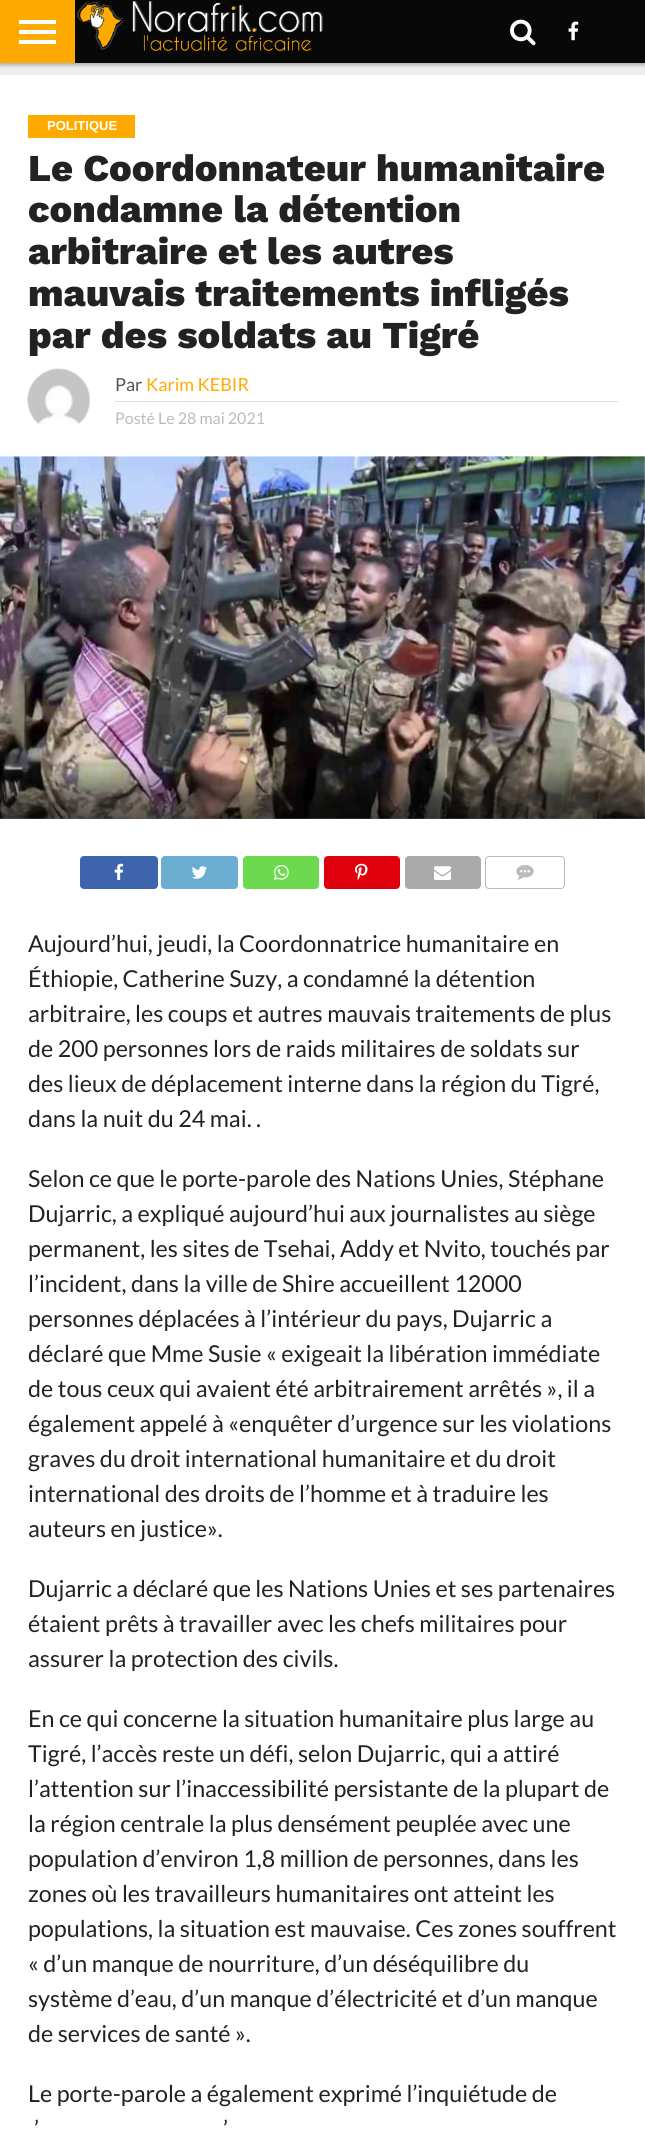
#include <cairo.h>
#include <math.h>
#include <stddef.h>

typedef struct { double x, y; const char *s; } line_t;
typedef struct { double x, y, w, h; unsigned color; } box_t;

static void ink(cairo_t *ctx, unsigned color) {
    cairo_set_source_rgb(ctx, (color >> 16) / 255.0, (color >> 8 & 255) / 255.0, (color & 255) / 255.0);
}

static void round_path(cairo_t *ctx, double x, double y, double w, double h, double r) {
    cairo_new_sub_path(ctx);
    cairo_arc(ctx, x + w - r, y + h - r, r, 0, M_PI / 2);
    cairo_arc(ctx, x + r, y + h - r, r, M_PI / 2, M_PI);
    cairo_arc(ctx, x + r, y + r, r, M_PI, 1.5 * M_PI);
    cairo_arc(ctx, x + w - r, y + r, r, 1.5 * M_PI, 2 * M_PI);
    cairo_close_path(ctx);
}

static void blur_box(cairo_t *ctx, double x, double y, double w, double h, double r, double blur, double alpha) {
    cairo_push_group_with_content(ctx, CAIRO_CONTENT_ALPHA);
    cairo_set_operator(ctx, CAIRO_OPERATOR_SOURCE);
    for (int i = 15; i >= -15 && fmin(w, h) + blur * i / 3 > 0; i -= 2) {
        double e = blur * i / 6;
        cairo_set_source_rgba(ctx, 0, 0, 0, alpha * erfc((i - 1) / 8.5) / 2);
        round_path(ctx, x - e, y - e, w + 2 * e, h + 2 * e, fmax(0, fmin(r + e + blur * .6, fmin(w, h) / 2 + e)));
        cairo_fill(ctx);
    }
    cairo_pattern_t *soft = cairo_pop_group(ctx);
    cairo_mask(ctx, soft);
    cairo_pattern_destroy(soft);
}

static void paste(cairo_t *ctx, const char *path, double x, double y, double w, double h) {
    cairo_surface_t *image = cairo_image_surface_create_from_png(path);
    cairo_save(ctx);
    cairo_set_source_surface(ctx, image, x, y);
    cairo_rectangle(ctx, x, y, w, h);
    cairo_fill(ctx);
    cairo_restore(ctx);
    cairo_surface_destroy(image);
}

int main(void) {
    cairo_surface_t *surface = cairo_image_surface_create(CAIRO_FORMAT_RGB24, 645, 2130);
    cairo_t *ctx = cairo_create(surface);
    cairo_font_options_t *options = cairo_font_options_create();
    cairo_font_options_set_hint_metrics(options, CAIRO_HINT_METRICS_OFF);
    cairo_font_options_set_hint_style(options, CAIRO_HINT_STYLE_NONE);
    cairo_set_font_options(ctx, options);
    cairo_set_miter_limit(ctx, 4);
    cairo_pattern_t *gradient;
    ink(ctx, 0xEEEEEE);
    cairo_paint(ctx);
    ink(ctx, 0x000000);
    blur_box(ctx, 0, 3, 645, 62, 0, 2, 0.3);
    {
        static const box_t items[] = {
            {75, 0, 570, 63, 0x080808},
            {0, 0, 75, 63, 0xFFAA00},
            {19, 20, 37, 4, 0xFFFFFF},
            {19, 30, 37, 4, 0xFFFFFF},
            {19, 40, 37, 4, 0xFFFFFF},
        };
        for (size_t i = 0; i < sizeof items / sizeof *items; i++) {
            ink(ctx, items[i].color);
            cairo_rectangle(ctx, items[i].x, items[i].y, items[i].w, items[i].h);
            cairo_fill(ctx);
        }
    }
    paste(ctx, "media/1.png", 77, 0, 246, 52);
    paste(ctx, "media/2.png", 510, 19, 26, 27);
    paste(ctx, "media/3.png", 568, 21, 11, 20);
    cairo_rectangle(ctx, 0, 75, 645, 2055);
    cairo_fill(ctx);
    ink(ctx, 0xFFAA00);
    cairo_rectangle(ctx, 28, 115, 107, 23);
    cairo_fill(ctx);
    cairo_select_font_face(ctx, "Liberation Sans", CAIRO_FONT_SLANT_NORMAL, CAIRO_FONT_WEIGHT_BOLD);
    cairo_set_font_size(ctx, 13);
    ink(ctx, 0xFFFFFF);
    cairo_move_to(ctx, 47, 130);
    cairo_show_text(ctx, "POLITIQUE");
    cairo_select_font_face(ctx, "Work Sans ExtraBold", CAIRO_FONT_SLANT_NORMAL, CAIRO_FONT_WEIGHT_NORMAL);
    cairo_set_font_size(ctx, 38);
    ink(ctx, 0x222222);
    {
        static const line_t items[] = {
            {28, 181, "Le Coordonnateur humanitaire"},
            {28, 222, "condamne la détention"},
            {28, 264, "arbitraire et les autres"},
            {28, 306, "mauvais traitements infligés"},
            {28, 348, "par des soldats au Tigré"},
        };
        for (size_t i = 0; i < sizeof items / sizeof *items; i++) {
            cairo_move_to(ctx, items[i].x, items[i].y);
            cairo_show_text(ctx, items[i].s);
        }
    }
    paste(ctx, "media/4.png", 27, 368, 63, 56);
    ink(ctx, 0xDDDDDD);
    cairo_rectangle(ctx, 115, 401, 503, 1);
    cairo_fill(ctx);
    cairo_select_font_face(ctx, "Lato", CAIRO_FONT_SLANT_NORMAL, CAIRO_FONT_WEIGHT_NORMAL);
    cairo_set_font_size(ctx, 18);
    ink(ctx, 0x555555);
    cairo_move_to(ctx, 115, 391);
    cairo_show_text(ctx, "Par");
    ink(ctx, 0xFFAA00);
    cairo_move_to(ctx, 146, 391);
    cairo_show_text(ctx, "Karim KEBIR");
    cairo_set_font_size(ctx, 16);
    ink(ctx, 0xBBBBBB);
    cairo_move_to(ctx, 115, 424);
    cairo_show_text(ctx, "Posté Le 28 mai 2021");
    paste(ctx, "media/5.png", 0, 456, 645, 363);
    gradient = cairo_pattern_create_linear(323, 769, 323, 819);
    cairo_pattern_add_color_stop_rgba(gradient, 0, 0, 0, 0, 0);
    cairo_pattern_add_color_stop_rgba(gradient, 0.5, 0, 0, 0, 0.4);
    cairo_pattern_add_color_stop_rgba(gradient, 1, 0, 0, 0, 0.6);
    cairo_set_source(ctx, gradient);
    cairo_pattern_destroy(gradient);
    cairo_rectangle(ctx, 0, 770, 645, 49);
    cairo_fill(ctx);
    ink(ctx, 0x3E64AD);
    round_path(ctx, 80, 856, 78, 33, 4);
    cairo_fill(ctx);
    paste(ctx, "media/6.png", 114, 863, 10, 17);
    ink(ctx, 0x6AADD1);
    round_path(ctx, 161, 856, 77, 33, 4);
    cairo_fill(ctx);
    paste(ctx, "media/7.png", 191, 866, 16, 13);
    ink(ctx, 0x6CD94E);
    round_path(ctx, 243, 856, 76, 33, 4);
    cairo_fill(ctx);
    paste(ctx, "media/8.png", 274, 864, 15, 16);
    ink(ctx, 0xDE010D);
    round_path(ctx, 324, 856, 76, 33, 4);
    cairo_fill(ctx);
    paste(ctx, "media/9.png", 355, 863, 13, 17);
    ink(ctx, 0xAAAAAA);
    round_path(ctx, 405, 856, 76, 33, 4);
    cairo_fill(ctx);
    paste(ctx, "media/10.png", 434, 866, 17, 14);
    round_path(ctx, 485.5, 856.5, 79, 32, 3.5);
    ink(ctx, 0xBBBBBB);
    cairo_set_line_width(ctx, 1);
    cairo_stroke(ctx);
    paste(ctx, "media/11.png", 516, 865, 18, 15);
    cairo_set_font_size(ctx, 23.3);
    ink(ctx, 0x222222);
    {
        static const line_t items[] = {
            {28, 952, "Aujourd’hui, jeudi, la Coordonnatrice humanitaire en"},
            {28, 987, "Éthiopie, Catherine Suzy, a condamné la détention"},
            {28, 1022, "arbitraire, les coups et autres mauvais traitements de plus"},
            {28, 1057, "de 200 personnes lors de raids militaires de soldats sur"},
            {28, 1092, "des lieux de déplacement interne dans la région du Tigré,"},
            {28, 1127, "dans la nuit du 24 mai. ."},
            {28, 1187, "Selon ce que le porte-parole des Nations Unies, Stéphane"},
            {28, 1222, "Dujarric, a expliqué aujourd’hui aux journalistes au siège"},
            {28, 1257, "permanent, les sites de Tsehai, Addy et Nvito, touchés par"},
            {28, 1292, "l’incident, dans la ville de Shire accueillent 12000"},
            {28, 1327, "personnes déplacées à l’intérieur du pays, Dujarric a"},
            {28, 1362, "déclaré que Mme Susie « exigeait la libération immédiate"},
            {28, 1397, "de tous ceux qui avaient été arbitrairement arrêtés », il a"},
            {28, 1432, "également appelé à «enquêter d’urgence sur les violations"},
            {28, 1467, "graves du droit international humanitaire et du droit"},
            {28, 1502, "international des droits de l’homme et à traduire les"},
            {28, 1537, "auteurs en justice»."},
            {28, 1597, "Dujarric a déclaré que les Nations Unies et ses partenaires"},
            {28, 1632, "étaient prêts à travailler avec les chefs militaires pour"},
            {28, 1667, "assurer la protection des civils."},
            {28, 1727, "En ce qui concerne la situation humanitaire plus large au"},
            {28, 1762, "Tigré, l’accès reste un défi, selon Dujarric, qui a attiré"},
            {28, 1797, "l’attention sur l’inaccessibilité persistante de la plupart de"},
            {28, 1832, "la région centrale la plus densément peuplée avec une"},
            {28, 1867, "population d’environ 1,8 million de personnes, dans les"},
            {28, 1902, "zones où les travailleurs humanitaires ont atteint les"},
            {28, 1937, "populations, la situation est mauvaise. Ces zones souffrent"},
            {28, 1972, "« d’un manque de nourriture, d’un déséquilibre du"},
            {28, 2007, "système d’eau, d’un manque d’électricité et d’un manque"},
            {28, 2042, "de services de santé »."},
            {28, 2102, "Le porte-parole a également exprimé l’inquiétude de"},
            {34, 2137, "’"},
            {223, 2137, "’"},
        };
        for (size_t i = 0; i < sizeof items / sizeof *items; i++) {
            cairo_move_to(ctx, items[i].x, items[i].y);
            cairo_show_text(ctx, items[i].s);
        }
    }
    cairo_surface_write_to_png(surface, "image.png");
    cairo_font_options_destroy(options);
    cairo_destroy(ctx);
    cairo_surface_destroy(surface);
    return 0;
}
